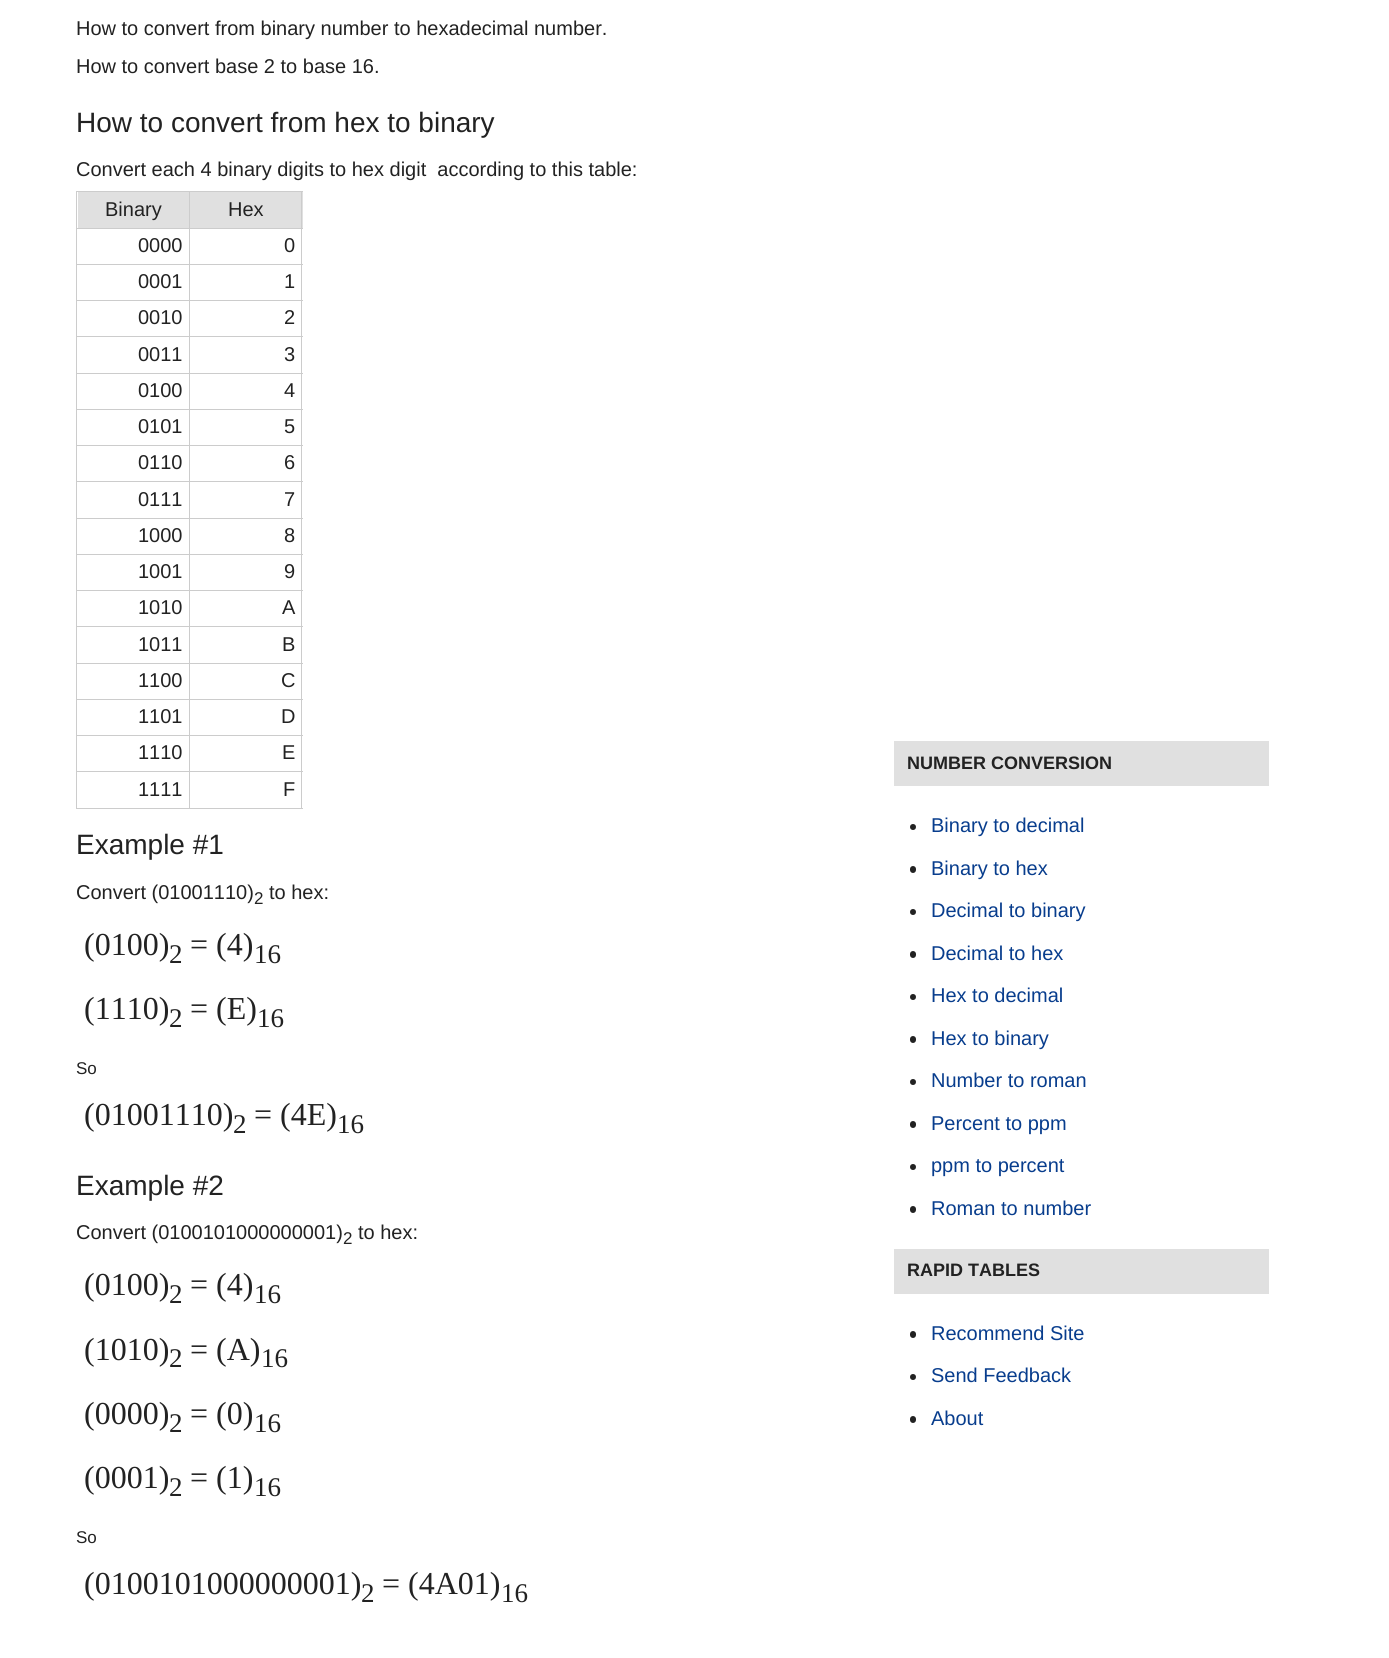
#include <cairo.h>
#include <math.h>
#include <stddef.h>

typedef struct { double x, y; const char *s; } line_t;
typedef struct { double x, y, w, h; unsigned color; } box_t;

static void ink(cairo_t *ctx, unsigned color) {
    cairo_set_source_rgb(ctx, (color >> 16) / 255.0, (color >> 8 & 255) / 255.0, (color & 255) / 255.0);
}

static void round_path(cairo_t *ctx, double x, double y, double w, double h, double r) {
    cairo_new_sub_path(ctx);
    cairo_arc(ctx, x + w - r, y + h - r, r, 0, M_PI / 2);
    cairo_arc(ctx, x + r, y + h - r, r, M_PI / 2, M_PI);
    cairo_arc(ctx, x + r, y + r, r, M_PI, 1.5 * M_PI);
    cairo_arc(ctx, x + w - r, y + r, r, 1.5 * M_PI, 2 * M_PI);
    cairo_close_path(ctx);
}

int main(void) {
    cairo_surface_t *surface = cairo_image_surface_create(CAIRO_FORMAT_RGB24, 1389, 1658);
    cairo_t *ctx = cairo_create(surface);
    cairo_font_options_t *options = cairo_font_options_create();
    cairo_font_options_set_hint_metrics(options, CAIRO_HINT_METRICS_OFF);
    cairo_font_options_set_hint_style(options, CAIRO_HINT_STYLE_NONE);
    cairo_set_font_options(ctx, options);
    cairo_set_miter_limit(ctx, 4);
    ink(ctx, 0xFFFFFF);
    cairo_paint(ctx);
    cairo_select_font_face(ctx, "Liberation Sans", CAIRO_FONT_SLANT_NORMAL, CAIRO_FONT_WEIGHT_NORMAL);
    cairo_set_font_size(ctx, 20);
    ink(ctx, 0x222222);
    cairo_move_to(ctx, 76, 35);
    cairo_show_text(ctx, "How to convert from binary number to hexadecimal number.");
    cairo_move_to(ctx, 76, 73);
    cairo_show_text(ctx, "How to convert base 2 to base 16.");
    cairo_set_font_size(ctx, 28);
    cairo_move_to(ctx, 76, 132);
    cairo_show_text(ctx, "How to convert from hex to binary");
    cairo_set_font_size(ctx, 20);
    cairo_move_to(ctx, 76, 176);
    cairo_show_text(ctx, "Convert each 4 binary digits to hex digit  according to this table:");
    {
        static const box_t items[] = {
            {76, 191, 227, 1, 0xCCCCCC},
            {190, 192, 113, 36, 0xE0E0E0},
            {301, 191, 1, 618, 0xCCCCCC},
            {76, 808, 227, 1, 0xCCCCCC},
            {76, 191, 1, 618, 0xCCCCCC},
            {78, 192, 111, 36, 0xE0E0E0},
        };
        for (size_t i = 0; i < sizeof items / sizeof *items; i++) {
            ink(ctx, items[i].color);
            cairo_rectangle(ctx, items[i].x, items[i].y, items[i].w, items[i].h);
            cairo_fill(ctx);
        }
    }
    ink(ctx, 0x222222);
    cairo_move_to(ctx, 105, 216);
    cairo_show_text(ctx, "Binary");
    {
        static const box_t items[] = {
            {189, 228, 114, 1, 0xCCCCCC},
            {189, 264, 114, 1, 0xCCCCCC},
            {189, 300, 114, 1, 0xCCCCCC},
            {189, 336, 114, 1, 0xCCCCCC},
            {189, 373, 114, 1, 0xCCCCCC},
            {189, 409, 114, 1, 0xCCCCCC},
            {189, 445, 114, 1, 0xCCCCCC},
            {189, 481, 114, 1, 0xCCCCCC},
            {189, 518, 114, 1, 0xCCCCCC},
            {189, 554, 114, 1, 0xCCCCCC},
            {189, 590, 114, 1, 0xCCCCCC},
            {189, 626, 114, 1, 0xCCCCCC},
            {189, 663, 114, 1, 0xCCCCCC},
            {189, 699, 114, 1, 0xCCCCCC},
            {189, 735, 114, 1, 0xCCCCCC},
            {189, 771, 114, 1, 0xCCCCCC},
            {189, 771, 1, 38, 0xCCCCCC},
            {76, 771, 114, 1, 0xCCCCCC},
            {189, 735, 1, 38, 0xCCCCCC},
            {76, 735, 114, 1, 0xCCCCCC},
            {189, 699, 1, 37, 0xCCCCCC},
            {76, 699, 114, 1, 0xCCCCCC},
            {189, 663, 1, 37, 0xCCCCCC},
            {76, 663, 114, 1, 0xCCCCCC},
            {189, 626, 1, 38, 0xCCCCCC},
            {76, 626, 114, 1, 0xCCCCCC},
            {189, 590, 1, 38, 0xCCCCCC},
            {76, 590, 114, 1, 0xCCCCCC},
            {189, 554, 1, 37, 0xCCCCCC},
            {76, 554, 114, 1, 0xCCCCCC},
            {189, 518, 1, 37, 0xCCCCCC},
            {76, 518, 114, 1, 0xCCCCCC},
            {189, 481, 1, 38, 0xCCCCCC},
            {76, 481, 114, 1, 0xCCCCCC},
            {189, 445, 1, 38, 0xCCCCCC},
            {76, 445, 114, 1, 0xCCCCCC},
            {189, 409, 1, 37, 0xCCCCCC},
            {76, 409, 114, 1, 0xCCCCCC},
            {189, 373, 1, 37, 0xCCCCCC},
            {76, 373, 114, 1, 0xCCCCCC},
            {189, 336, 1, 38, 0xCCCCCC},
            {76, 336, 114, 1, 0xCCCCCC},
            {189, 300, 1, 38, 0xCCCCCC},
            {76, 300, 114, 1, 0xCCCCCC},
            {189, 264, 1, 37, 0xCCCCCC},
            {76, 264, 114, 1, 0xCCCCCC},
            {189, 228, 1, 37, 0xCCCCCC},
            {76, 228, 114, 1, 0xCCCCCC},
            {189, 191, 1, 38, 0xCCCCCC},
        };
        for (size_t i = 0; i < sizeof items / sizeof *items; i++) {
            ink(ctx, items[i].color);
            cairo_rectangle(ctx, items[i].x, items[i].y, items[i].w, items[i].h);
            cairo_fill(ctx);
        }
    }
    ink(ctx, 0x222222);
    {
        static const line_t items[] = {
            {228, 216, "Hex"},
            {138, 252, "0000"},
            {284, 252, "0"},
            {138, 288, "0001"},
            {284, 288, "1"},
            {138, 324, "0010"},
            {284, 324, "2"},
            {138, 361, "0011"},
            {284, 361, "3"},
            {138, 397, "0100"},
            {284, 397, "4"},
            {138, 433, "0101"},
            {284, 433, "5"},
            {138, 469, "0110"},
            {284, 469, "6"},
            {138, 506, "0111"},
            {284, 506, "7"},
            {138, 542, "1000"},
            {284, 542, "8"},
            {138, 578, "1001"},
            {284, 578, "9"},
            {138, 614, "1010"},
            {282, 614, "A"},
            {138, 651, "1011"},
            {282, 651, "B"},
            {138, 687, "1100"},
            {281, 687, "C"},
            {138, 723, "1101"},
            {281, 723, "D"},
            {138, 759, "1110"},
            {282, 759, "E"},
            {138, 796, "1111"},
            {283, 796, "F"},
        };
        for (size_t i = 0; i < sizeof items / sizeof *items; i++) {
            cairo_move_to(ctx, items[i].x, items[i].y);
            cairo_show_text(ctx, items[i].s);
        }
    }
    cairo_set_font_size(ctx, 28);
    cairo_move_to(ctx, 76, 854);
    cairo_show_text(ctx, "Example #1");
    cairo_set_font_size(ctx, 20);
    cairo_move_to(ctx, 76, 899);
    cairo_show_text(ctx, "Convert (01001110)");
    cairo_set_font_size(ctx, 17);
    cairo_move_to(ctx, 254, 904);
    cairo_show_text(ctx, "2");
    cairo_set_font_size(ctx, 20);
    cairo_move_to(ctx, 269, 899);
    cairo_show_text(ctx, "to hex:");
    cairo_select_font_face(ctx, "Liberation Serif", CAIRO_FONT_SLANT_NORMAL, CAIRO_FONT_WEIGHT_NORMAL);
    cairo_set_font_size(ctx, 32);
    cairo_move_to(ctx, 84, 955);
    cairo_show_text(ctx, "(0100)");
    cairo_set_font_size(ctx, 27);
    cairo_move_to(ctx, 169, 963);
    cairo_show_text(ctx, "2");
    cairo_set_font_size(ctx, 32);
    cairo_move_to(ctx, 190, 955);
    cairo_show_text(ctx, "= (4)");
    cairo_set_font_size(ctx, 27);
    cairo_move_to(ctx, 254, 963);
    cairo_show_text(ctx, "16");
    cairo_set_font_size(ctx, 32);
    cairo_move_to(ctx, 84, 1019);
    cairo_show_text(ctx, "(1110)");
    cairo_set_font_size(ctx, 27);
    cairo_move_to(ctx, 169, 1027);
    cairo_show_text(ctx, "2");
    cairo_set_font_size(ctx, 32);
    cairo_move_to(ctx, 190, 1019);
    cairo_show_text(ctx, "= (E)");
    cairo_set_font_size(ctx, 27);
    cairo_move_to(ctx, 257, 1027);
    cairo_show_text(ctx, "16");
    cairo_select_font_face(ctx, "Liberation Sans", CAIRO_FONT_SLANT_NORMAL, CAIRO_FONT_WEIGHT_NORMAL);
    cairo_set_font_size(ctx, 17);
    cairo_move_to(ctx, 76, 1074);
    cairo_show_text(ctx, "So");
    cairo_select_font_face(ctx, "Liberation Serif", CAIRO_FONT_SLANT_NORMAL, CAIRO_FONT_WEIGHT_NORMAL);
    cairo_set_font_size(ctx, 32);
    cairo_move_to(ctx, 84, 1125);
    cairo_show_text(ctx, "(01001110)");
    cairo_set_font_size(ctx, 27);
    cairo_move_to(ctx, 233, 1133);
    cairo_show_text(ctx, "2");
    cairo_set_font_size(ctx, 32);
    cairo_move_to(ctx, 254, 1125);
    cairo_show_text(ctx, "= (4E)");
    cairo_set_font_size(ctx, 27);
    cairo_move_to(ctx, 337, 1133);
    cairo_show_text(ctx, "16");
    cairo_select_font_face(ctx, "Liberation Sans", CAIRO_FONT_SLANT_NORMAL, CAIRO_FONT_WEIGHT_NORMAL);
    cairo_set_font_size(ctx, 28);
    cairo_move_to(ctx, 76, 1195);
    cairo_show_text(ctx, "Example #2");
    cairo_set_font_size(ctx, 20);
    cairo_move_to(ctx, 76, 1239);
    cairo_show_text(ctx, "Convert (0100101000000001)");
    cairo_set_font_size(ctx, 17);
    cairo_move_to(ctx, 343, 1244);
    cairo_show_text(ctx, "2");
    cairo_set_font_size(ctx, 20);
    cairo_move_to(ctx, 358, 1239);
    cairo_show_text(ctx, "to hex:");
    cairo_select_font_face(ctx, "Liberation Serif", CAIRO_FONT_SLANT_NORMAL, CAIRO_FONT_WEIGHT_NORMAL);
    cairo_set_font_size(ctx, 32);
    cairo_move_to(ctx, 84, 1295);
    cairo_show_text(ctx, "(0100)");
    cairo_set_font_size(ctx, 27);
    cairo_move_to(ctx, 169, 1303);
    cairo_show_text(ctx, "2");
    cairo_set_font_size(ctx, 32);
    cairo_move_to(ctx, 190, 1295);
    cairo_show_text(ctx, "= (4)");
    cairo_set_font_size(ctx, 27);
    cairo_move_to(ctx, 254, 1303);
    cairo_show_text(ctx, "16");
    cairo_set_font_size(ctx, 32);
    cairo_move_to(ctx, 84, 1360);
    cairo_show_text(ctx, "(1010)");
    cairo_set_font_size(ctx, 27);
    cairo_move_to(ctx, 169, 1367);
    cairo_show_text(ctx, "2");
    cairo_set_font_size(ctx, 32);
    cairo_move_to(ctx, 190, 1360);
    cairo_show_text(ctx, "= (A)");
    cairo_set_font_size(ctx, 27);
    cairo_move_to(ctx, 261, 1367);
    cairo_show_text(ctx, "16");
    cairo_set_font_size(ctx, 32);
    cairo_move_to(ctx, 84, 1424);
    cairo_show_text(ctx, "(0000)");
    cairo_set_font_size(ctx, 27);
    cairo_move_to(ctx, 169, 1432);
    cairo_show_text(ctx, "2");
    cairo_set_font_size(ctx, 32);
    cairo_move_to(ctx, 190, 1424);
    cairo_show_text(ctx, "= (0)");
    cairo_set_font_size(ctx, 27);
    cairo_move_to(ctx, 254, 1432);
    cairo_show_text(ctx, "16");
    cairo_set_font_size(ctx, 32);
    cairo_move_to(ctx, 84, 1488);
    cairo_show_text(ctx, "(0001)");
    cairo_set_font_size(ctx, 27);
    cairo_move_to(ctx, 169, 1496);
    cairo_show_text(ctx, "2");
    cairo_set_font_size(ctx, 32);
    cairo_move_to(ctx, 190, 1488);
    cairo_show_text(ctx, "= (1)");
    cairo_set_font_size(ctx, 27);
    cairo_move_to(ctx, 254, 1496);
    cairo_show_text(ctx, "16");
    cairo_select_font_face(ctx, "Liberation Sans", CAIRO_FONT_SLANT_NORMAL, CAIRO_FONT_WEIGHT_NORMAL);
    cairo_set_font_size(ctx, 17);
    cairo_move_to(ctx, 76, 1543);
    cairo_show_text(ctx, "So");
    cairo_select_font_face(ctx, "Liberation Serif", CAIRO_FONT_SLANT_NORMAL, CAIRO_FONT_WEIGHT_NORMAL);
    cairo_set_font_size(ctx, 32);
    cairo_move_to(ctx, 84, 1594);
    cairo_show_text(ctx, "(0100101000000001)");
    cairo_set_font_size(ctx, 27);
    cairo_move_to(ctx, 361, 1602);
    cairo_show_text(ctx, "2");
    cairo_set_font_size(ctx, 32);
    cairo_move_to(ctx, 382, 1594);
    cairo_show_text(ctx, "= (4A01)");
    cairo_set_font_size(ctx, 27);
    cairo_move_to(ctx, 501, 1602);
    cairo_show_text(ctx, "16");
    ink(ctx, 0xE0E0E0);
    cairo_rectangle(ctx, 894, 741, 375, 45);
    cairo_fill(ctx);
    cairo_select_font_face(ctx, "Liberation Sans", CAIRO_FONT_SLANT_NORMAL, CAIRO_FONT_WEIGHT_BOLD);
    cairo_set_font_size(ctx, 18);
    ink(ctx, 0x222222);
    cairo_move_to(ctx, 907, 769);
    cairo_show_text(ctx, "NUMBER CONVERSION");
    cairo_new_path(ctx);
    cairo_arc(ctx, 913, 827, 3, 0, 2 * M_PI);
    cairo_fill(ctx);
    cairo_select_font_face(ctx, "Liberation Sans", CAIRO_FONT_SLANT_NORMAL, CAIRO_FONT_WEIGHT_NORMAL);
    cairo_set_font_size(ctx, 20);
    ink(ctx, 0x083D8D);
    cairo_move_to(ctx, 931, 832);
    cairo_show_text(ctx, "Binary to decimal");
    ink(ctx, 0x222222);
    round_path(ctx, 910, 866, 6, 7, 3);
    cairo_fill(ctx);
    ink(ctx, 0x083D8D);
    cairo_move_to(ctx, 931, 875);
    cairo_show_text(ctx, "Binary to hex");
    ink(ctx, 0x222222);
    cairo_new_path(ctx);
    cairo_arc(ctx, 913, 912, 3, 0, 2 * M_PI);
    cairo_fill(ctx);
    ink(ctx, 0x083D8D);
    cairo_move_to(ctx, 931, 917);
    cairo_show_text(ctx, "Decimal to binary");
    ink(ctx, 0x222222);
    round_path(ctx, 910, 951, 6, 7, 3);
    cairo_fill(ctx);
    ink(ctx, 0x083D8D);
    cairo_move_to(ctx, 931, 960);
    cairo_show_text(ctx, "Decimal to hex");
    ink(ctx, 0x222222);
    cairo_new_path(ctx);
    cairo_arc(ctx, 913, 997, 3, 0, 2 * M_PI);
    cairo_fill(ctx);
    ink(ctx, 0x083D8D);
    cairo_move_to(ctx, 931, 1002);
    cairo_show_text(ctx, "Hex to decimal");
    ink(ctx, 0x222222);
    round_path(ctx, 910, 1036, 6, 7, 3);
    cairo_fill(ctx);
    ink(ctx, 0x083D8D);
    cairo_move_to(ctx, 931, 1045);
    cairo_show_text(ctx, "Hex to binary");
    ink(ctx, 0x222222);
    cairo_new_path(ctx);
    cairo_arc(ctx, 913, 1082, 3, 0, 2 * M_PI);
    cairo_fill(ctx);
    ink(ctx, 0x083D8D);
    cairo_move_to(ctx, 931, 1087);
    cairo_show_text(ctx, "Number to roman");
    ink(ctx, 0x222222);
    round_path(ctx, 910, 1121, 6, 7, 3);
    cairo_fill(ctx);
    ink(ctx, 0x083D8D);
    cairo_move_to(ctx, 931, 1130);
    cairo_show_text(ctx, "Percent to ppm");
    ink(ctx, 0x222222);
    cairo_new_path(ctx);
    cairo_arc(ctx, 913, 1167, 3, 0, 2 * M_PI);
    cairo_fill(ctx);
    ink(ctx, 0x083D8D);
    cairo_move_to(ctx, 931, 1172);
    cairo_show_text(ctx, "ppm to percent");
    ink(ctx, 0x222222);
    round_path(ctx, 910, 1206, 6, 7, 3);
    cairo_fill(ctx);
    ink(ctx, 0x083D8D);
    cairo_move_to(ctx, 931, 1215);
    cairo_show_text(ctx, "Roman to number");
    ink(ctx, 0xE0E0E0);
    cairo_rectangle(ctx, 894, 1249, 375, 45);
    cairo_fill(ctx);
    cairo_select_font_face(ctx, "Liberation Sans", CAIRO_FONT_SLANT_NORMAL, CAIRO_FONT_WEIGHT_BOLD);
    cairo_set_font_size(ctx, 18);
    ink(ctx, 0x222222);
    cairo_move_to(ctx, 907, 1276);
    cairo_show_text(ctx, "RAPID TABLES");
    round_path(ctx, 910, 1331, 6, 7, 3);
    cairo_fill(ctx);
    cairo_select_font_face(ctx, "Liberation Sans", CAIRO_FONT_SLANT_NORMAL, CAIRO_FONT_WEIGHT_NORMAL);
    cairo_set_font_size(ctx, 20);
    ink(ctx, 0x083D8D);
    cairo_move_to(ctx, 931, 1340);
    cairo_show_text(ctx, "Recommend Site");
    ink(ctx, 0x222222);
    cairo_new_path(ctx);
    cairo_arc(ctx, 913, 1377, 3, 0, 2 * M_PI);
    cairo_fill(ctx);
    ink(ctx, 0x083D8D);
    cairo_move_to(ctx, 931, 1382);
    cairo_show_text(ctx, "Send Feedback");
    ink(ctx, 0x222222);
    round_path(ctx, 910, 1416, 6, 7, 3);
    cairo_fill(ctx);
    ink(ctx, 0x083D8D);
    cairo_move_to(ctx, 931, 1425);
    cairo_show_text(ctx, "About");
    cairo_surface_write_to_png(surface, "image.png");
    cairo_font_options_destroy(options);
    cairo_destroy(ctx);
    cairo_surface_destroy(surface);
    return 0;
}
